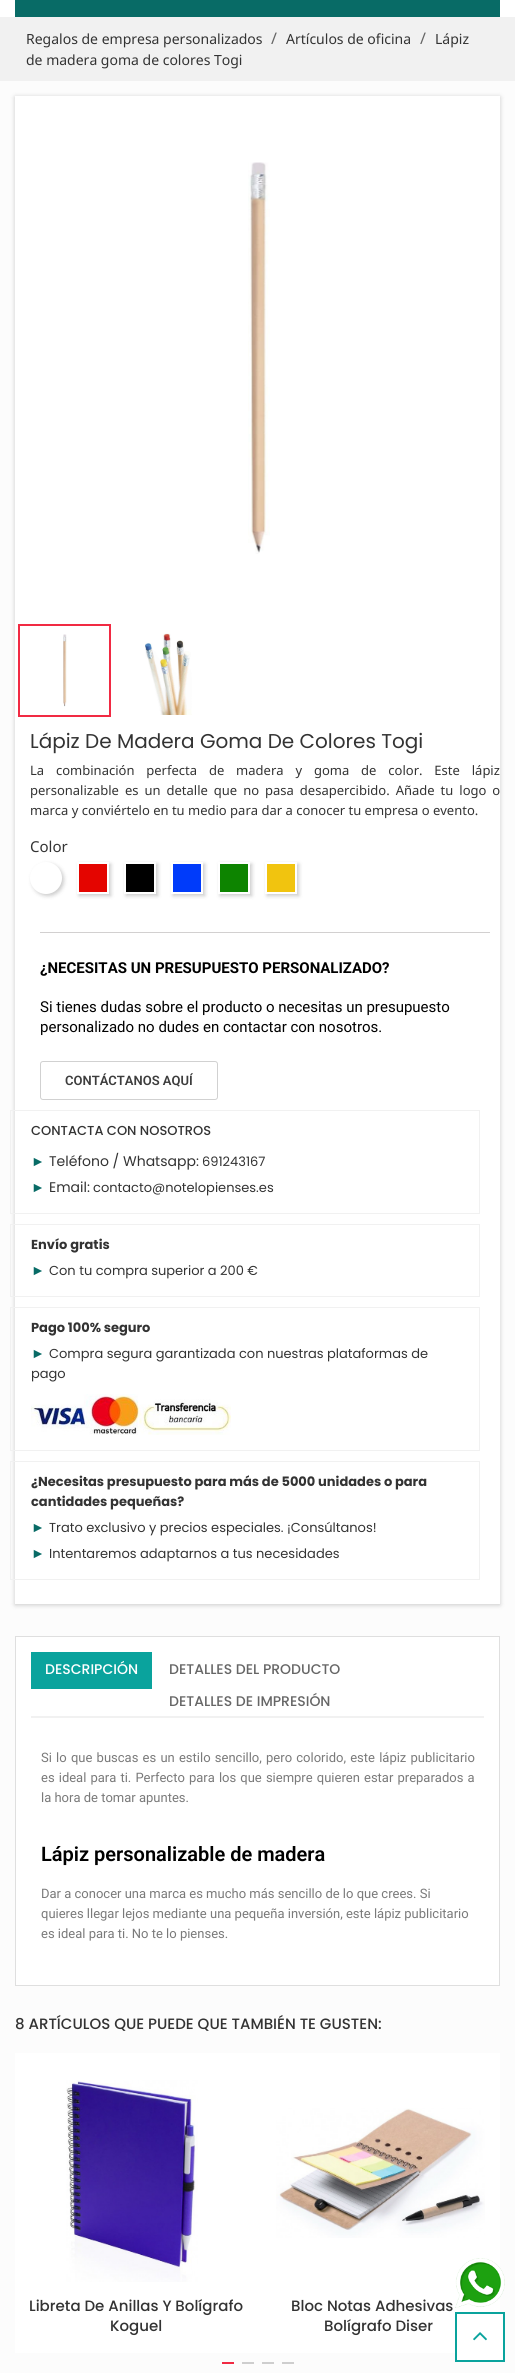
#include <cairo.h>
#include <math.h>
#include <stddef.h>

typedef struct { double x, y; const char *s; } line_t;
typedef struct { double x, y, w, h; unsigned color; } box_t;

static void ink(cairo_t *ctx, unsigned color) {
    cairo_set_source_rgb(ctx, (color >> 16) / 255.0, (color >> 8 & 255) / 255.0, (color & 255) / 255.0);
}

static void write_spaced(cairo_t *ctx, double x, double y, const char *s, double letter, double word) {
    cairo_move_to(ctx, x, y);
    while (*s) {
        char ch[5] = {0};
        int n = 0;
        do ch[n++] = *s++; while ((*s & 0xC0) == 0x80);
        cairo_show_text(ctx, ch);
        cairo_rel_move_to(ctx, letter + word * (*ch == ' '), 0);
    }
}

static void round_path(cairo_t *ctx, double x, double y, double w, double h, double r) {
    cairo_new_sub_path(ctx);
    cairo_arc(ctx, x + w - r, y + h - r, r, 0, M_PI / 2);
    cairo_arc(ctx, x + r, y + h - r, r, M_PI / 2, M_PI);
    cairo_arc(ctx, x + r, y + r, r, M_PI, 1.5 * M_PI);
    cairo_arc(ctx, x + w - r, y + r, r, 1.5 * M_PI, 2 * M_PI);
    cairo_close_path(ctx);
}

static void blur_box(cairo_t *ctx, double x, double y, double w, double h, double r, double blur, double alpha) {
    cairo_push_group_with_content(ctx, CAIRO_CONTENT_ALPHA);
    cairo_set_operator(ctx, CAIRO_OPERATOR_SOURCE);
    for (int i = 15; i >= -15 && fmin(w, h) + blur * i / 3 > 0; i -= 2) {
        double e = blur * i / 6;
        cairo_set_source_rgba(ctx, 0, 0, 0, alpha * erfc((i - 1) / 8.5) / 2);
        round_path(ctx, x - e, y - e, w + 2 * e, h + 2 * e, fmax(0, fmin(r + e + blur * .6, fmin(w, h) / 2 + e)));
        cairo_fill(ctx);
    }
    cairo_pattern_t *soft = cairo_pop_group(ctx);
    cairo_mask(ctx, soft);
    cairo_pattern_destroy(soft);
}

static void paste(cairo_t *ctx, const char *path, double x, double y, double w, double h) {
    cairo_surface_t *image = cairo_image_surface_create_from_png(path);
    cairo_save(ctx);
    cairo_set_source_surface(ctx, image, x, y);
    cairo_rectangle(ctx, x, y, w, h);
    cairo_fill(ctx);
    cairo_restore(ctx);
    cairo_surface_destroy(image);
}

int main(void) {
    cairo_surface_t *surface = cairo_image_surface_create(CAIRO_FORMAT_RGB24, 515, 2377);
    cairo_t *ctx = cairo_create(surface);
    cairo_font_options_t *options = cairo_font_options_create();
    cairo_font_options_set_hint_metrics(options, CAIRO_HINT_METRICS_OFF);
    cairo_font_options_set_hint_style(options, CAIRO_HINT_STYLE_NONE);
    cairo_set_font_options(ctx, options);
    cairo_set_miter_limit(ctx, 4);
    ink(ctx, 0xFFFFFF);
    cairo_paint(ctx);
    {
        static const box_t items[] = {
            {15, 0, 485, 17, 0x086B66},
            {0, 81, 515, 2292, 0xFCFCFC},
            {0, 17, 515, 64, 0xF1F1F1},
        };
        for (size_t i = 0; i < sizeof items / sizeof *items; i++) {
            ink(ctx, items[i].color);
            cairo_rectangle(ctx, items[i].x, items[i].y, items[i].w, items[i].h);
            cairo_fill(ctx);
        }
    }
    cairo_select_font_face(ctx, "Noto Sans", CAIRO_FONT_SLANT_NORMAL, CAIRO_FONT_WEIGHT_NORMAL);
    cairo_set_font_size(ctx, 14);
    ink(ctx, 0x333333);
    cairo_move_to(ctx, 26, 44);
    cairo_show_text(ctx, "Regalos de empresa personalizados");
    cairo_set_font_size(ctx, 16);
    ink(ctx, 0x666666);
    cairo_move_to(ctx, 271, 44);
    cairo_show_text(ctx, "/");
    cairo_set_font_size(ctx, 14);
    ink(ctx, 0x333333);
    cairo_move_to(ctx, 286, 44);
    cairo_show_text(ctx, "Artículos de oficina");
    cairo_set_font_size(ctx, 16);
    ink(ctx, 0x666666);
    cairo_move_to(ctx, 420, 44);
    cairo_show_text(ctx, "/");
    cairo_set_font_size(ctx, 14);
    ink(ctx, 0x333333);
    cairo_move_to(ctx, 435, 44);
    cairo_show_text(ctx, "Lápiz");
    cairo_move_to(ctx, 26, 65);
    cairo_show_text(ctx, "de madera goma de colores Togi");
    ink(ctx, 0x000000);
    blur_box(ctx, 15, 97, 485, 1508, 0, 2.5, 0.2);
    ink(ctx, 0xFFFFFF);
    cairo_rectangle(ctx, 15, 96, 485, 1508);
    cairo_fill(ctx);
    paste(ctx, "media/1.png", 248, 162, 22, 392);
    cairo_rectangle(ctx, 19, 625, 91, 91);
    ink(ctx, 0xF12A43);
    cairo_stroke(ctx);
    paste(ctx, "media/2.png", 63, 634, 4, 73);
    paste(ctx, "media/3.png", 145, 633, 47, 82);
    cairo_select_font_face(ctx, "Poppins", CAIRO_FONT_SLANT_NORMAL, CAIRO_FONT_WEIGHT_NORMAL);
    cairo_set_font_size(ctx, 20);
    ink(ctx, 0x333333);
    cairo_move_to(ctx, 30, 748);
    cairo_show_text(ctx, "Lápiz De Madera Goma De Colores Togi");
    cairo_select_font_face(ctx, "Noto Sans", CAIRO_FONT_SLANT_NORMAL, CAIRO_FONT_WEIGHT_NORMAL);
    cairo_set_font_size(ctx, 13);
    write_spaced(ctx, 30, 775, "La combinación perfecta de madera y goma de color. Este lápiz", 0, 8.5);
    write_spaced(ctx, 30, 795, "personalizable es un detalle que no pasa desapercibido. Añade tu logo o", 0, 2.6);
    cairo_move_to(ctx, 30, 815);
    cairo_show_text(ctx, "marca y conviértelo en tu medio para dar a conocer tu empresa o evento.");
    cairo_set_font_size(ctx, 15);
    cairo_move_to(ctx, 30, 852);
    cairo_show_text(ctx, "Color");
    ink(ctx, 0x000000);
    blur_box(ctx, 32, 864, 32, 32, 16, 2, 0.2);
    ink(ctx, 0xFFFFFF);
    cairo_arc(ctx, 46, 878, 15, 0, 2 * M_PI);
    cairo_fill_preserve(ctx);
    cairo_stroke(ctx);
    ink(ctx, 0x000000);
    blur_box(ctx, 79, 864, 32, 32, 0, 2, 0.2);
    ink(ctx, 0xE40500);
    cairo_rectangle(ctx, 78, 863, 30, 30);
    cairo_fill_preserve(ctx);
    ink(ctx, 0xFFFFFF);
    cairo_stroke(ctx);
    ink(ctx, 0x000000);
    blur_box(ctx, 126, 864, 32, 32, 0, 2, 0.2);
    ink(ctx, 0x000000);
    cairo_rectangle(ctx, 125, 863, 30, 30);
    cairo_fill_preserve(ctx);
    ink(ctx, 0xFFFFFF);
    cairo_stroke(ctx);
    ink(ctx, 0x000000);
    blur_box(ctx, 173, 864, 32, 32, 0, 2, 0.2);
    ink(ctx, 0x003BFA);
    cairo_rectangle(ctx, 172, 863, 30, 30);
    cairo_fill_preserve(ctx);
    ink(ctx, 0xFFFFFF);
    cairo_stroke(ctx);
    ink(ctx, 0x000000);
    blur_box(ctx, 220, 864, 32, 32, 0, 2, 0.2);
    ink(ctx, 0x0D8400);
    cairo_rectangle(ctx, 219, 863, 30, 30);
    cairo_fill_preserve(ctx);
    ink(ctx, 0xFFFFFF);
    cairo_stroke(ctx);
    ink(ctx, 0x000000);
    blur_box(ctx, 267, 864, 32, 32, 0, 2, 0.2);
    ink(ctx, 0xF1C40F);
    cairo_rectangle(ctx, 266, 863, 30, 30);
    cairo_fill_preserve(ctx);
    ink(ctx, 0xFFFFFF);
    cairo_stroke(ctx);
    ink(ctx, 0xD2D0D0);
    cairo_rectangle(ctx, 40, 932, 450, 1);
    cairo_fill(ctx);
    cairo_select_font_face(ctx, "Roboto", CAIRO_FONT_SLANT_NORMAL, CAIRO_FONT_WEIGHT_BOLD);
    ink(ctx, 0x000000);
    cairo_move_to(ctx, 40, 973);
    cairo_show_text(ctx, "¿NECESITAS UN PRESUPUESTO PERSONALIZADO?");
    cairo_select_font_face(ctx, "Roboto", CAIRO_FONT_SLANT_NORMAL, CAIRO_FONT_WEIGHT_NORMAL);
    cairo_move_to(ctx, 40, 1012);
    cairo_show_text(ctx, "Si tienes dudas sobre el producto o necesitas un presupuesto");
    cairo_move_to(ctx, 40, 1032);
    cairo_show_text(ctx, "personalizado no dudes en contactar con nosotros.");
    round_path(ctx, 40.5, 1061.5, 177, 38, 2.5);
    ink(ctx, 0xD1D1D1);
    cairo_set_line_width(ctx, 1);
    cairo_stroke(ctx);
    cairo_select_font_face(ctx, "Roboto SemiBold", CAIRO_FONT_SLANT_NORMAL, CAIRO_FONT_WEIGHT_NORMAL);
    cairo_set_font_size(ctx, 13);
    ink(ctx, 0x3D3D3D);
    cairo_move_to(ctx, 65, 1085);
    cairo_show_text(ctx, "CONTÁCTANOS AQUÍ");
    cairo_rectangle(ctx, 10.5, 1110.5, 469, 103);
    ink(ctx, 0xF1F1F1);
    cairo_stroke(ctx);
    cairo_select_font_face(ctx, "Poppins Medium", CAIRO_FONT_SLANT_NORMAL, CAIRO_FONT_WEIGHT_NORMAL);
    ink(ctx, 0x333333);
    cairo_move_to(ctx, 31, 1135);
    cairo_show_text(ctx, "CONTACTA CON NOSOTROS");
    cairo_select_font_face(ctx, "Liberation Sans", CAIRO_FONT_SLANT_NORMAL, CAIRO_FONT_WEIGHT_NORMAL);
    cairo_set_font_size(ctx, 14);
    ink(ctx, 0x086B66);
    cairo_move_to(ctx, 31, 1166);
    cairo_show_text(ctx, "►");
    cairo_select_font_face(ctx, "Poppins", CAIRO_FONT_SLANT_NORMAL, CAIRO_FONT_WEIGHT_NORMAL);
    ink(ctx, 0x333333);
    cairo_move_to(ctx, 49, 1166);
    cairo_show_text(ctx, "Teléfono / Whatsapp:");
    cairo_set_font_size(ctx, 13);
    cairo_move_to(ctx, 202, 1166);
    cairo_show_text(ctx, "691243167");
    cairo_select_font_face(ctx, "Liberation Sans", CAIRO_FONT_SLANT_NORMAL, CAIRO_FONT_WEIGHT_NORMAL);
    cairo_set_font_size(ctx, 14);
    ink(ctx, 0x086B66);
    cairo_move_to(ctx, 31, 1192);
    cairo_show_text(ctx, "►");
    cairo_select_font_face(ctx, "Poppins", CAIRO_FONT_SLANT_NORMAL, CAIRO_FONT_WEIGHT_NORMAL);
    ink(ctx, 0x333333);
    cairo_move_to(ctx, 49, 1192);
    cairo_show_text(ctx, "Email:");
    cairo_set_font_size(ctx, 13);
    cairo_move_to(ctx, 93, 1192);
    cairo_show_text(ctx, "contacto@notelopienses.es");
    cairo_rectangle(ctx, 10.5, 1224.5, 469, 72);
    ink(ctx, 0xF1F1F1);
    cairo_stroke(ctx);
    cairo_select_font_face(ctx, "Poppins", CAIRO_FONT_SLANT_NORMAL, CAIRO_FONT_WEIGHT_BOLD);
    ink(ctx, 0x333333);
    cairo_move_to(ctx, 31, 1249);
    cairo_show_text(ctx, "Envío gratis");
    cairo_select_font_face(ctx, "Liberation Sans", CAIRO_FONT_SLANT_NORMAL, CAIRO_FONT_WEIGHT_NORMAL);
    cairo_set_font_size(ctx, 14);
    ink(ctx, 0x086B66);
    cairo_move_to(ctx, 31, 1275);
    cairo_show_text(ctx, "►");
    cairo_select_font_face(ctx, "Poppins", CAIRO_FONT_SLANT_NORMAL, CAIRO_FONT_WEIGHT_NORMAL);
    cairo_set_font_size(ctx, 13);
    ink(ctx, 0x333333);
    cairo_move_to(ctx, 49, 1275);
    cairo_show_text(ctx, "Con tu compra superior a 200 €");
    cairo_rectangle(ctx, 10.5, 1307.5, 469, 143);
    ink(ctx, 0xF1F1F1);
    cairo_stroke(ctx);
    cairo_select_font_face(ctx, "Poppins", CAIRO_FONT_SLANT_NORMAL, CAIRO_FONT_WEIGHT_BOLD);
    ink(ctx, 0x333333);
    cairo_move_to(ctx, 31, 1332);
    cairo_show_text(ctx, "Pago 100% seguro");
    cairo_select_font_face(ctx, "Liberation Sans", CAIRO_FONT_SLANT_NORMAL, CAIRO_FONT_WEIGHT_NORMAL);
    cairo_set_font_size(ctx, 14);
    ink(ctx, 0x086B66);
    cairo_move_to(ctx, 31, 1358);
    cairo_show_text(ctx, "►");
    cairo_select_font_face(ctx, "Poppins", CAIRO_FONT_SLANT_NORMAL, CAIRO_FONT_WEIGHT_NORMAL);
    cairo_set_font_size(ctx, 13);
    ink(ctx, 0x333333);
    cairo_move_to(ctx, 49, 1358);
    cairo_show_text(ctx, "Compra segura garantizada con nuestras plataformas de");
    cairo_move_to(ctx, 31, 1378);
    cairo_show_text(ctx, "pago");
    paste(ctx, "media/4.png", 31, 1394, 200, 41);
    cairo_rectangle(ctx, 10.5, 1461.5, 469, 118);
    ink(ctx, 0xF1F1F1);
    cairo_stroke(ctx);
    cairo_select_font_face(ctx, "Poppins", CAIRO_FONT_SLANT_NORMAL, CAIRO_FONT_WEIGHT_BOLD);
    ink(ctx, 0x333333);
    cairo_move_to(ctx, 31, 1486);
    cairo_show_text(ctx, "¿Necesitas presupuesto para más de 5000 unidades o para");
    cairo_move_to(ctx, 31, 1506);
    cairo_show_text(ctx, "cantidades pequeñas?");
    cairo_select_font_face(ctx, "Liberation Sans", CAIRO_FONT_SLANT_NORMAL, CAIRO_FONT_WEIGHT_NORMAL);
    cairo_set_font_size(ctx, 14);
    ink(ctx, 0x086B66);
    cairo_move_to(ctx, 31, 1532);
    cairo_show_text(ctx, "►");
    cairo_select_font_face(ctx, "Poppins", CAIRO_FONT_SLANT_NORMAL, CAIRO_FONT_WEIGHT_NORMAL);
    cairo_set_font_size(ctx, 13);
    ink(ctx, 0x333333);
    cairo_move_to(ctx, 49, 1532);
    cairo_show_text(ctx, "Trato exclusivo y precios especiales. ¡Consúltanos!");
    cairo_select_font_face(ctx, "Liberation Sans", CAIRO_FONT_SLANT_NORMAL, CAIRO_FONT_WEIGHT_NORMAL);
    cairo_set_font_size(ctx, 14);
    ink(ctx, 0x086B66);
    cairo_move_to(ctx, 31, 1558);
    cairo_show_text(ctx, "►");
    cairo_select_font_face(ctx, "Poppins", CAIRO_FONT_SLANT_NORMAL, CAIRO_FONT_WEIGHT_NORMAL);
    cairo_set_font_size(ctx, 13);
    ink(ctx, 0x333333);
    cairo_move_to(ctx, 49, 1558);
    cairo_show_text(ctx, "Intentaremos adaptarnos a tus necesidades");
    ink(ctx, 0xFFFFFF);
    cairo_rectangle(ctx, 15.5, 1636.5, 484, 349);
    cairo_fill_preserve(ctx);
    ink(ctx, 0xDFDFDF);
    cairo_stroke(ctx);
    ink(ctx, 0xF1F1F1);
    cairo_rectangle(ctx, 31, 1716, 453, 2);
    cairo_fill(ctx);
    ink(ctx, 0x0AA39D);
    cairo_rectangle(ctx, 31, 1652, 121, 37);
    cairo_fill(ctx);
    cairo_select_font_face(ctx, "Poppins Medium", CAIRO_FONT_SLANT_NORMAL, CAIRO_FONT_WEIGHT_NORMAL);
    cairo_set_font_size(ctx, 14);
    ink(ctx, 0xFFFFFF);
    cairo_move_to(ctx, 45, 1674);
    cairo_show_text(ctx, "DESCRIPCIÓN");
    ink(ctx, 0x666666);
    cairo_move_to(ctx, 169, 1674);
    cairo_show_text(ctx, "DETALLES DEL PRODUCTO");
    cairo_move_to(ctx, 169, 1706);
    cairo_show_text(ctx, "DETALLES DE IMPRESIÓN");
    cairo_select_font_face(ctx, "Roboto", CAIRO_FONT_SLANT_NORMAL, CAIRO_FONT_WEIGHT_NORMAL);
    cairo_set_font_size(ctx, 13);
    ink(ctx, 0x7A7A7A);
    write_spaced(ctx, 41, 1762, "Si lo que buscas es un estilo sencillo, pero colorido, este lápiz publicitario", 0, 1);
    write_spaced(ctx, 41, 1782, "es ideal para ti. Perfecto para los que siempre quieren estar preparados a", 0, 0.9);
    cairo_move_to(ctx, 41, 1802);
    cairo_show_text(ctx, "la hora de tomar apuntes.");
    cairo_select_font_face(ctx, "Roboto SemiBold", CAIRO_FONT_SLANT_NORMAL, CAIRO_FONT_WEIGHT_NORMAL);
    cairo_set_font_size(ctx, 20);
    ink(ctx, 0x000000);
    cairo_move_to(ctx, 41, 1861);
    cairo_show_text(ctx, "Lápiz personalizable de madera");
    cairo_select_font_face(ctx, "Roboto", CAIRO_FONT_SLANT_NORMAL, CAIRO_FONT_WEIGHT_NORMAL);
    cairo_set_font_size(ctx, 13);
    ink(ctx, 0x7A7A7A);
    {
        static const line_t items[] = {
            {41, 1898, "Dar a conocer una marca es mucho más sencillo de lo que crees. Si"},
            {41, 1918, "quieres llegar lejos mediante una pequeña inversión, este lápiz publicitario"},
            {41, 1938, "es ideal para ti. No te lo pienses."},
        };
        for (size_t i = 0; i < sizeof items / sizeof *items; i++) {
            cairo_move_to(ctx, items[i].x, items[i].y);
            cairo_show_text(ctx, items[i].s);
        }
    }
    cairo_select_font_face(ctx, "Poppins Medium", CAIRO_FONT_SLANT_NORMAL, CAIRO_FONT_WEIGHT_NORMAL);
    cairo_set_font_size(ctx, 15);
    ink(ctx, 0x333333);
    cairo_move_to(ctx, 15, 2029);
    cairo_show_text(ctx, "8 ARTÍCULOS QUE PUEDE QUE TAMBIÉN TE GUSTEN:");
    ink(ctx, 0xFFFFFF);
    cairo_rectangle(ctx, 15, 2053, 485, 300);
    cairo_fill(ctx);
    paste(ctx, "media/5.png", 66, 2080, 132, 202);
    ink(ctx, 0x333333);
    cairo_move_to(ctx, 29, 2311);
    cairo_show_text(ctx, "Libreta De Anillas Y Bolígrafo");
    cairo_move_to(ctx, 110, 2331);
    cairo_show_text(ctx, "Koguel");
    paste(ctx, "media/6.png", 276, 2108, 209, 130);
    cairo_move_to(ctx, 291, 2311);
    cairo_show_text(ctx, "Bloc Notas Adhesivas");
    cairo_move_to(ctx, 324, 2331);
    cairo_show_text(ctx, "Bolígrafo Diser");
    {
        static const box_t items[] = {
            {222, 2362, 12, 2, 0xF12A43},
            {242, 2362, 12, 2, 0xCECECE},
            {262, 2362, 12, 2, 0xCECECE},
            {282, 2362, 12, 2, 0xCECECE},
        };
        for (size_t i = 0; i < sizeof items / sizeof *items; i++) {
            ink(ctx, items[i].color);
            cairo_rectangle(ctx, items[i].x, items[i].y, items[i].w, items[i].h);
            cairo_fill(ctx);
        }
    }
    paste(ctx, "media/7.png", 455, 2258, 50, 50);
    ink(ctx, 0xFFFFFF);
    cairo_rectangle(ctx, 456, 2313, 48, 48);
    cairo_fill_preserve(ctx);
    ink(ctx, 0x0AA39D);
    cairo_set_line_width(ctx, 2);
    cairo_stroke(ctx);
    paste(ctx, "media/8.png", 473, 2332, 14, 9);
    cairo_surface_write_to_png(surface, "image.png");
    cairo_font_options_destroy(options);
    cairo_destroy(ctx);
    cairo_surface_destroy(surface);
    return 0;
}
